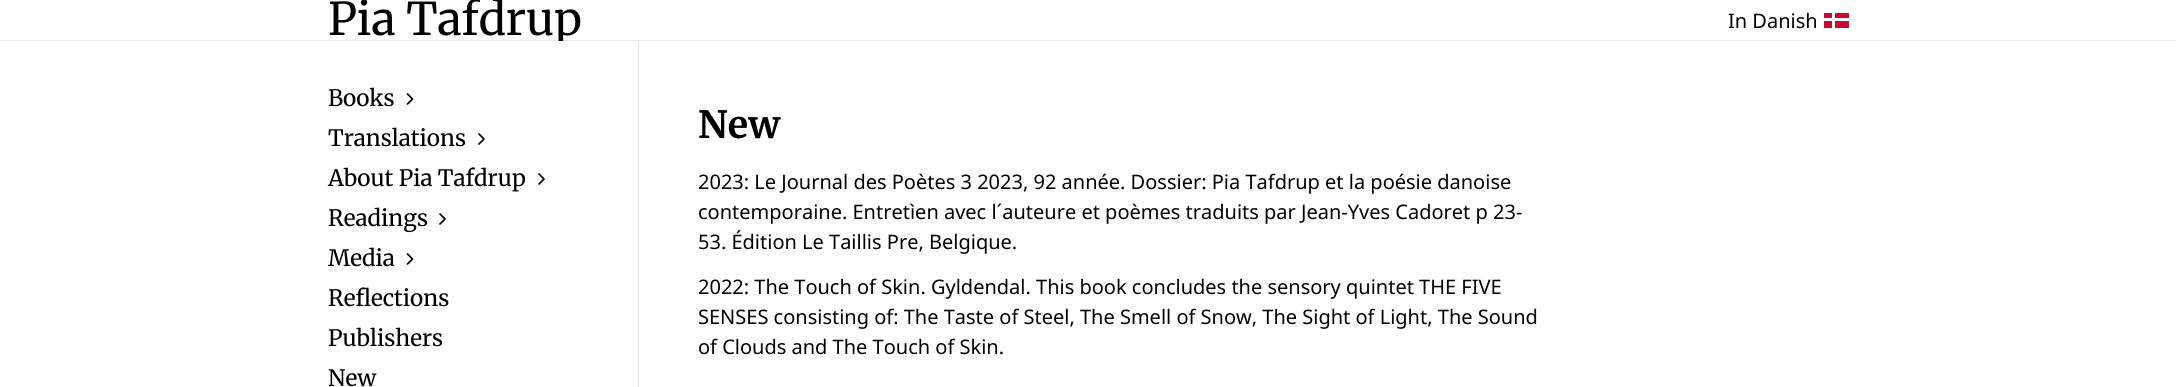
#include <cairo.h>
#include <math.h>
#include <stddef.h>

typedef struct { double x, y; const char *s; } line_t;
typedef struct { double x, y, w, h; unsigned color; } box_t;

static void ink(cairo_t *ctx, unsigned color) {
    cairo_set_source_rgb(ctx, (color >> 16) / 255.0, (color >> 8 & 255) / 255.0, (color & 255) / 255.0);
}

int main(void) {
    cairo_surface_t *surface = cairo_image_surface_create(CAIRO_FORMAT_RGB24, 2176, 387);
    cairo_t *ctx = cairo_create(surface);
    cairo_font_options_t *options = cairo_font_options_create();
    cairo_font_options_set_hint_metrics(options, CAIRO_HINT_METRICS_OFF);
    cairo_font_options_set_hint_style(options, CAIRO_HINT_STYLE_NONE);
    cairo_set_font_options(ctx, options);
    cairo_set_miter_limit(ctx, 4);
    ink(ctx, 0xFFFFFF);
    cairo_paint(ctx);
    ink(ctx, 0xE5E7EB);
    cairo_rectangle(ctx, 0, 40, 2176, 1);
    cairo_fill(ctx);
    cairo_select_font_face(ctx, "Merriweather", CAIRO_FONT_SLANT_NORMAL, CAIRO_FONT_WEIGHT_NORMAL);
    cairo_set_font_size(ctx, 45);
    ink(ctx, 0x000000);
    cairo_move_to(ctx, 328, 35);
    cairo_show_text(ctx, "Pia Tafdrup");
    cairo_select_font_face(ctx, "Noto Sans", CAIRO_FONT_SLANT_NORMAL, CAIRO_FONT_WEIGHT_NORMAL);
    cairo_set_font_size(ctx, 20);
    cairo_move_to(ctx, 1728, 28);
    cairo_show_text(ctx, "In Danish");
    {
        static const box_t items[] = {
            {1824, 13, 25, 15, 0xC60C30},
            {1832, 13, 3, 15, 0xFFFFFF},
            {1824, 18, 25, 3, 0xFFFFFF},
            {555, 41, 14, 5, 0xFFFFFF},
            {638, 41, 1, 346, 0xE5E7EB},
        };
        for (size_t i = 0; i < sizeof items / sizeof *items; i++) {
            ink(ctx, items[i].color);
            cairo_rectangle(ctx, items[i].x, items[i].y, items[i].w, items[i].h);
            cairo_fill(ctx);
        }
    }
    cairo_select_font_face(ctx, "Merriweather", CAIRO_FONT_SLANT_NORMAL, CAIRO_FONT_WEIGHT_NORMAL);
    cairo_set_font_size(ctx, 22.5);
    ink(ctx, 0x000000);
    cairo_move_to(ctx, 328, 106);
    cairo_show_text(ctx, "Books");
    cairo_new_path(ctx);
    cairo_move_to(ctx, 407.5, 104);
    cairo_line_to(ctx, 412.5, 99);
    cairo_line_to(ctx, 407.5, 94);
    cairo_set_line_width(ctx, 1.7);
    cairo_set_line_cap(ctx, CAIRO_LINE_CAP_ROUND);
    cairo_set_line_join(ctx, CAIRO_LINE_JOIN_ROUND);
    cairo_stroke(ctx);
    cairo_move_to(ctx, 328, 146);
    cairo_show_text(ctx, "Translations");
    cairo_new_path(ctx);
    cairo_move_to(ctx, 479, 144);
    cairo_line_to(ctx, 484, 139);
    cairo_line_to(ctx, 479, 134);
    cairo_stroke(ctx);
    cairo_move_to(ctx, 328, 186);
    cairo_show_text(ctx, "About Pia Tafdrup");
    cairo_new_path(ctx);
    cairo_move_to(ctx, 539, 184);
    cairo_line_to(ctx, 544, 179);
    cairo_line_to(ctx, 539, 174);
    cairo_stroke(ctx);
    cairo_move_to(ctx, 328, 226);
    cairo_show_text(ctx, "Readings");
    cairo_new_path(ctx);
    cairo_move_to(ctx, 440, 224);
    cairo_line_to(ctx, 445, 219);
    cairo_line_to(ctx, 440, 214);
    cairo_move_to(ctx, 407.5, 264);
    cairo_line_to(ctx, 412.5, 259);
    cairo_line_to(ctx, 407.5, 254);
    cairo_stroke(ctx);
    {
        static const line_t items[] = {
            {328, 266, "Media"},
            {328, 306, "Reflections"},
            {328, 346, "Publishers"},
            {328, 386, "New"},
        };
        for (size_t i = 0; i < sizeof items / sizeof *items; i++) {
            cairo_move_to(ctx, items[i].x, items[i].y);
            cairo_show_text(ctx, items[i].s);
        }
    }
    cairo_select_font_face(ctx, "Merriweather", CAIRO_FONT_SLANT_NORMAL, CAIRO_FONT_WEIGHT_BOLD);
    cairo_set_font_size(ctx, 37.5);
    cairo_move_to(ctx, 698, 138);
    cairo_show_text(ctx, "New");
    cairo_select_font_face(ctx, "Noto Sans", CAIRO_FONT_SLANT_NORMAL, CAIRO_FONT_WEIGHT_NORMAL);
    cairo_set_font_size(ctx, 20);
    {
        static const line_t items[] = {
            {698, 189, "2023: Le Journal des Poètes 3 2023, 92 année. Dossier: Pia Tafdrup et la poésie danoise"},
            {698, 219, "contemporaine. Entretìen avec l´auteure et poèmes traduits par Jean-Yves Cadoret p 23-"},
            {698, 249, "53. Édition Le Taillis Pre, Belgique."},
            {698, 294, "2022: The Touch of Skin. Gyldendal. This book concludes the sensory quintet THE FIVE"},
            {698, 324, "SENSES consisting of: The Taste of Steel, The Smell of Snow, The Sight of Light, The Sound"},
            {698, 354, "of Clouds and The Touch of Skin."},
        };
        for (size_t i = 0; i < sizeof items / sizeof *items; i++) {
            cairo_move_to(ctx, items[i].x, items[i].y);
            cairo_show_text(ctx, items[i].s);
        }
    }
    cairo_surface_write_to_png(surface, "image.png");
    cairo_font_options_destroy(options);
    cairo_destroy(ctx);
    cairo_surface_destroy(surface);
    return 0;
}
